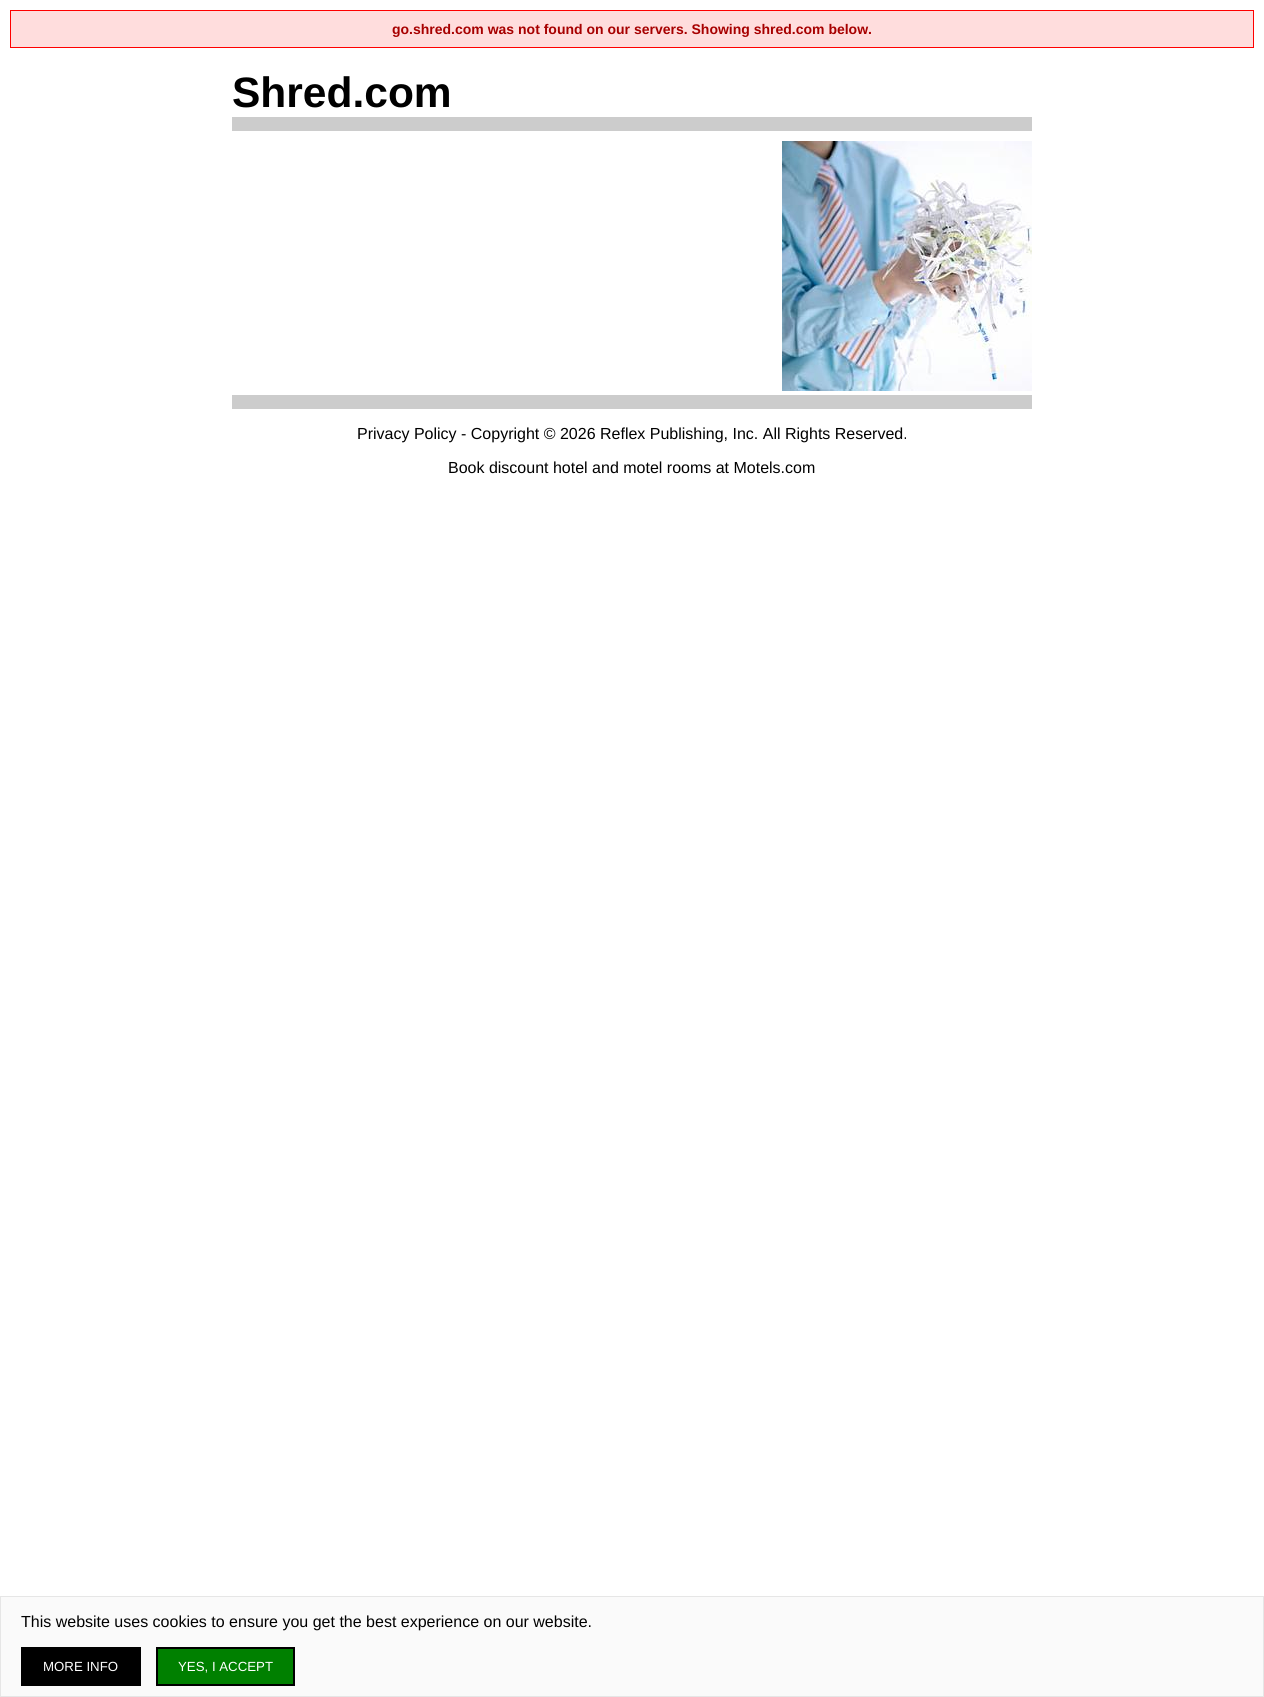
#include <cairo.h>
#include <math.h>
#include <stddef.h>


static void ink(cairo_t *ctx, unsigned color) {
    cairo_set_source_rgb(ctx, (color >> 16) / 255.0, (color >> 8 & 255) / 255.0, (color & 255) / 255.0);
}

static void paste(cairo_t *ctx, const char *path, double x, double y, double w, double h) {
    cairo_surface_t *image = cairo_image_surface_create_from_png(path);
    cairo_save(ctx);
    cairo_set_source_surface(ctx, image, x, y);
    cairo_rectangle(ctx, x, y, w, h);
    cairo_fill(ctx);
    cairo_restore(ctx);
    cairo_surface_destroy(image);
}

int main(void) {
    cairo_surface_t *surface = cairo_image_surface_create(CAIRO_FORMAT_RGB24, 1264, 1697);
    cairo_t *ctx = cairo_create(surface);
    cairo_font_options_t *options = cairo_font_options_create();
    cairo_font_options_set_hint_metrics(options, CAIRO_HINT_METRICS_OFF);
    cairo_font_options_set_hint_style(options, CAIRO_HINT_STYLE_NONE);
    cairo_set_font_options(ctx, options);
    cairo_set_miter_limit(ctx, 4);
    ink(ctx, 0xFFFFFF);
    cairo_paint(ctx);
    ink(ctx, 0xFFDDDD);
    cairo_rectangle(ctx, 10.5, 10.5, 1243, 37);
    cairo_fill_preserve(ctx);
    ink(ctx, 0xFF0000);
    cairo_set_line_width(ctx, 1);
    cairo_stroke(ctx);
    cairo_select_font_face(ctx, "Liberation Sans", CAIRO_FONT_SLANT_NORMAL, CAIRO_FONT_WEIGHT_BOLD);
    cairo_set_font_size(ctx, 14);
    ink(ctx, 0xA70000);
    cairo_move_to(ctx, 392, 34);
    cairo_show_text(ctx, "go.shred.com was not found on our servers. Showing shred.com below.");
    cairo_set_font_size(ctx, 42.5);
    ink(ctx, 0x000000);
    cairo_move_to(ctx, 232, 107);
    cairo_show_text(ctx, "Shred.com");
    ink(ctx, 0xCCCCCC);
    cairo_rectangle(ctx, 232, 117, 800, 14);
    cairo_fill(ctx);
    paste(ctx, "media/1.png", 782, 141, 250, 250);
    cairo_rectangle(ctx, 232, 395, 800, 14);
    cairo_fill(ctx);
    cairo_select_font_face(ctx, "Liberation Sans", CAIRO_FONT_SLANT_NORMAL, CAIRO_FONT_WEIGHT_NORMAL);
    cairo_set_font_size(ctx, 16);
    ink(ctx, 0x000000);
    cairo_move_to(ctx, 357, 439);
    cairo_show_text(ctx, "Privacy Policy - Copyright © 2026 Reflex Publishing, Inc. All Rights Reserved.");
    cairo_move_to(ctx, 448, 473);
    cairo_show_text(ctx, "Book discount hotel and motel rooms at Motels.com");
    ink(ctx, 0xE6E6E6);
    cairo_rectangle(ctx, 0, 1596, 1264, 101);
    cairo_fill(ctx);
    ink(ctx, 0xFAFAFA);
    cairo_rectangle(ctx, 1, 1597, 1262, 99);
    cairo_fill(ctx);
    ink(ctx, 0x000000);
    cairo_move_to(ctx, 21, 1627);
    cairo_show_text(ctx, "This website uses cookies to ensure you get the best experience on our website.");
    cairo_rectangle(ctx, 21, 1647, 120, 39);
    cairo_fill(ctx);
    cairo_set_font_size(ctx, 13.25);
    ink(ctx, 0xFFFFFF);
    cairo_move_to(ctx, 43, 1671);
    cairo_show_text(ctx, "MORE INFO");
    ink(ctx, 0x008000);
    cairo_rectangle(ctx, 157, 1648, 137, 37);
    cairo_fill_preserve(ctx);
    ink(ctx, 0x000000);
    cairo_set_line_width(ctx, 2);
    cairo_stroke(ctx);
    ink(ctx, 0xFFFFFF);
    cairo_move_to(ctx, 178, 1671);
    cairo_show_text(ctx, "YES, I ACCEPT");
    cairo_surface_write_to_png(surface, "image.png");
    cairo_font_options_destroy(options);
    cairo_destroy(ctx);
    cairo_surface_destroy(surface);
    return 0;
}
